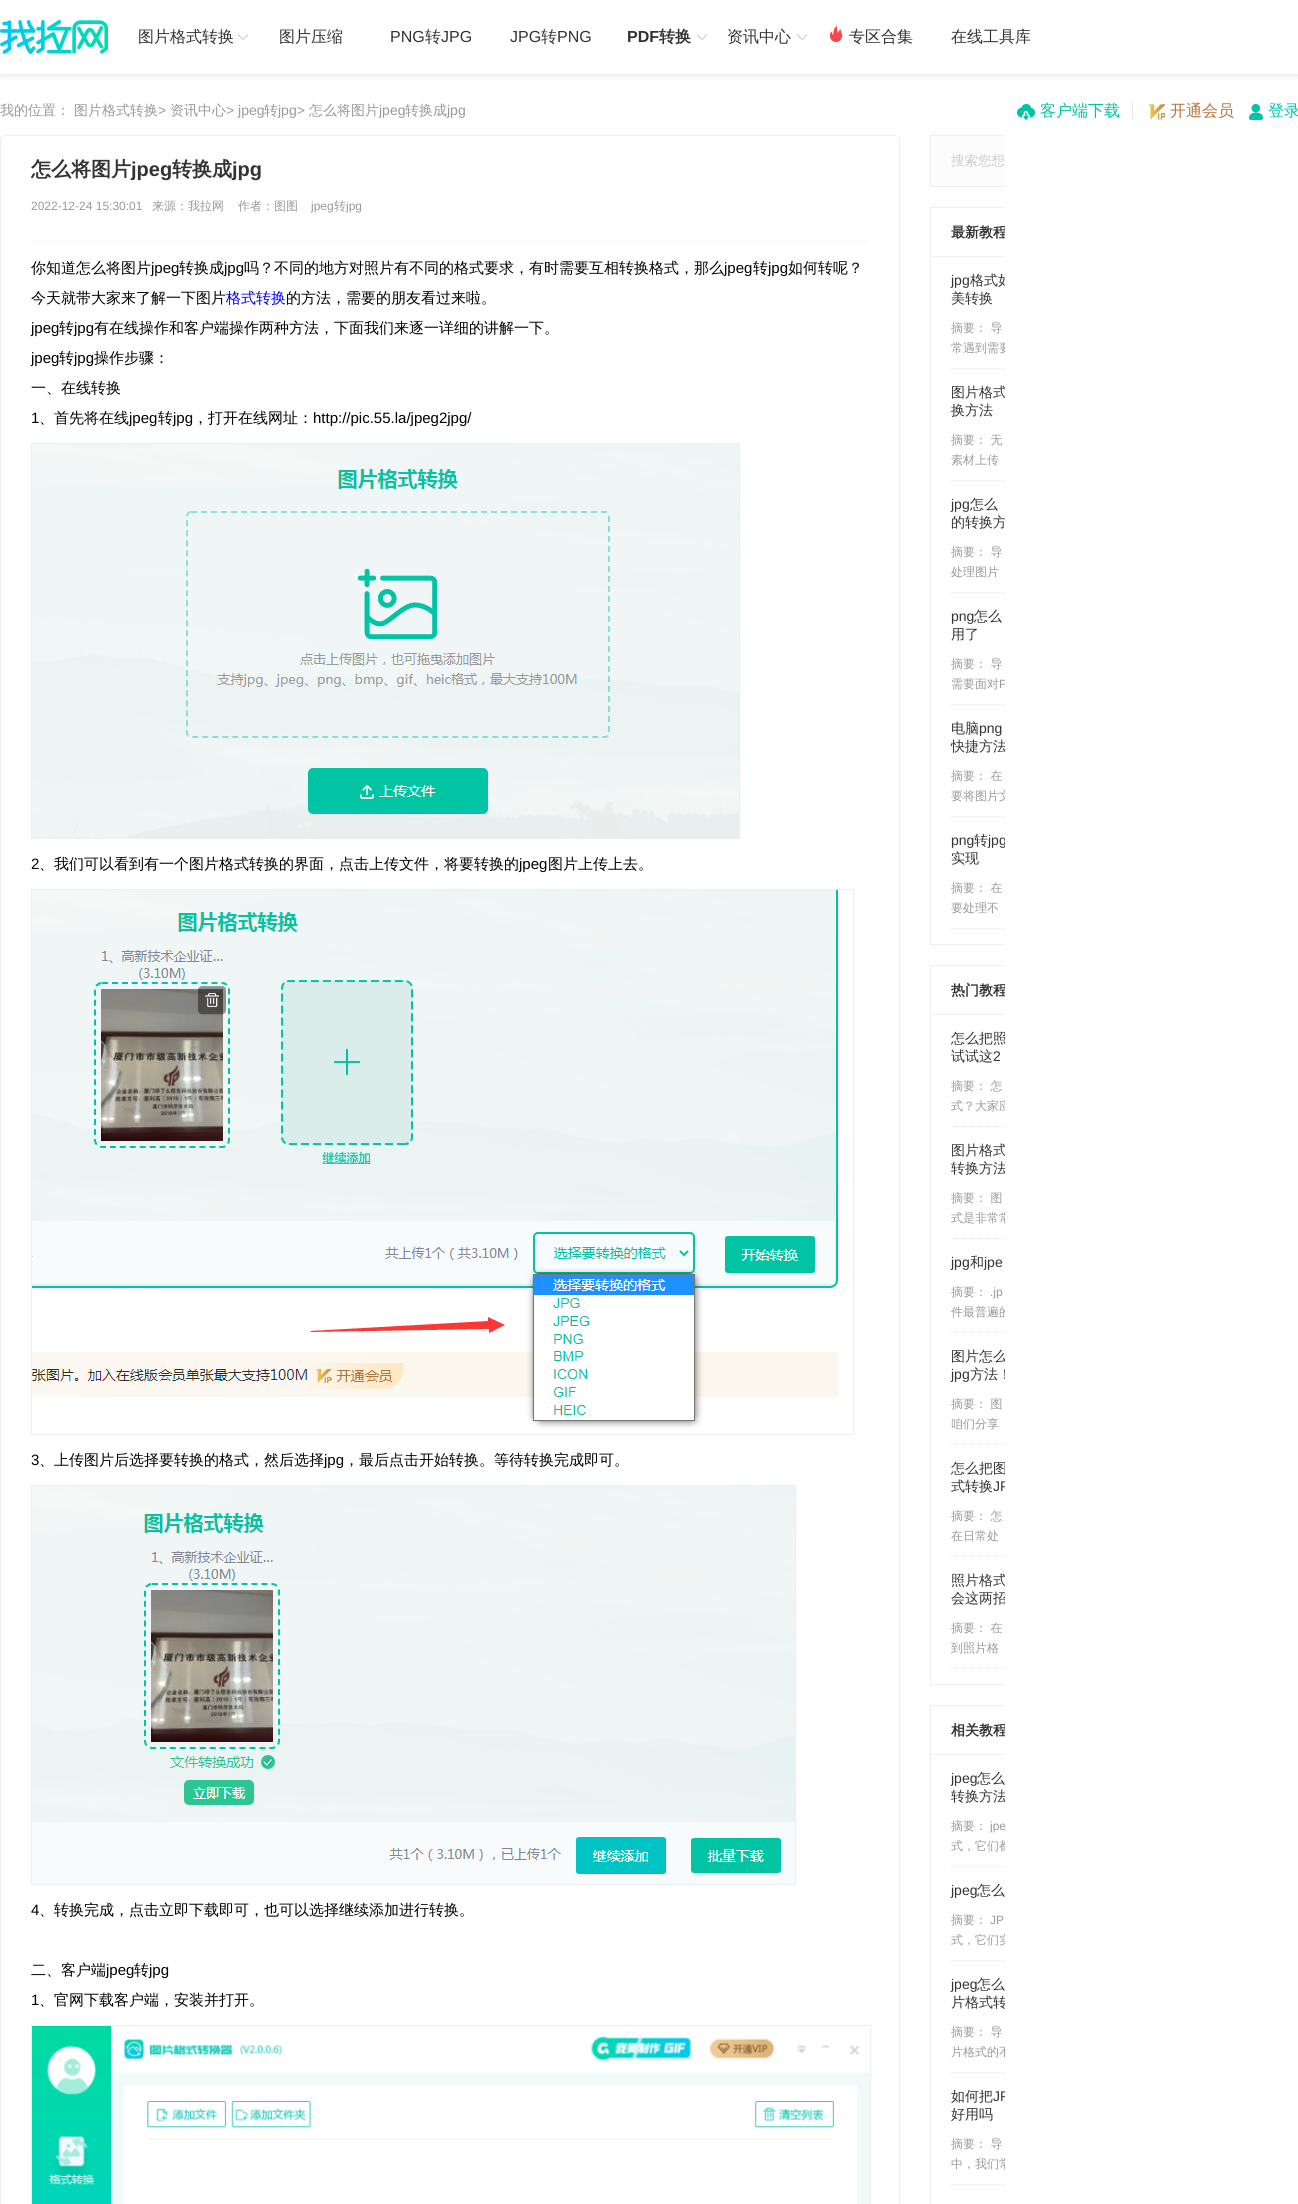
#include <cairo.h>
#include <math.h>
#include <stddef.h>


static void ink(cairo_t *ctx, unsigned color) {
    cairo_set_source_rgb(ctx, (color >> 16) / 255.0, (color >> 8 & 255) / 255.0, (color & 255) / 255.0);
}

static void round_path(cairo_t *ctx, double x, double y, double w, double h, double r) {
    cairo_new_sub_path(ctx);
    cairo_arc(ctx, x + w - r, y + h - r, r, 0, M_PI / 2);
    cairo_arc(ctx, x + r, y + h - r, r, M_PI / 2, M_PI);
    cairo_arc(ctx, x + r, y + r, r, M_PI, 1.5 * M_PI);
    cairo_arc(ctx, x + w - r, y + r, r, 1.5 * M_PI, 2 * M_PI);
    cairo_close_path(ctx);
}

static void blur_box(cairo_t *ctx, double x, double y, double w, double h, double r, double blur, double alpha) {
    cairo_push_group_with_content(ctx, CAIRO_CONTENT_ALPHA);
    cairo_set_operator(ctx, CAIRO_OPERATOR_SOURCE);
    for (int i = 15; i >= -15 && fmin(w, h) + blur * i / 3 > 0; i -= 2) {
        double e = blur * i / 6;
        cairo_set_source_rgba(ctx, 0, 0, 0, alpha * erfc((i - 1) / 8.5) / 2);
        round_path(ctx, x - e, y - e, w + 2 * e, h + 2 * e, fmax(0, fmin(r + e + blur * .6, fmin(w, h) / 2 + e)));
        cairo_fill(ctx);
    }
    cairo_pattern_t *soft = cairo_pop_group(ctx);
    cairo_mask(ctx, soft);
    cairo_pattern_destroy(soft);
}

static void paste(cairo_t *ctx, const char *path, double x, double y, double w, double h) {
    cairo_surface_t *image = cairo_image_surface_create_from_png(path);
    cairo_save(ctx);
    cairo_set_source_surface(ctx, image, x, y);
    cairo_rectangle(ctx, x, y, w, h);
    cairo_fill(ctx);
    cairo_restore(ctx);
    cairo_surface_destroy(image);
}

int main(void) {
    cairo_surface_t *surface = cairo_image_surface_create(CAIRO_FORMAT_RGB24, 1298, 2204);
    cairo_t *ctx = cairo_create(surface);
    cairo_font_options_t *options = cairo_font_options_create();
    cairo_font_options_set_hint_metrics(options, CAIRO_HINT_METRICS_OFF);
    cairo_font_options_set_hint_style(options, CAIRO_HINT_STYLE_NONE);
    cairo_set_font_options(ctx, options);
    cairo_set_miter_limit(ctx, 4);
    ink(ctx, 0xFFFFFF);
    cairo_paint(ctx);
    cairo_save(ctx);
    cairo_rectangle(ctx, 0, 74, 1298, 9);
    cairo_clip(ctx);
    ink(ctx, 0xE6E6E6);
    blur_box(ctx, 0, 2, 1298, 74, 0, 3.5, 1);
    cairo_restore(ctx);
    paste(ctx, "media/1.png", 0, 20, 108, 34);
    paste(ctx, "media/2.png", 238, 34, 10, 6);
    cairo_select_font_face(ctx, "WenQuanYi Zen Hei Medium", CAIRO_FONT_SLANT_NORMAL, CAIRO_FONT_WEIGHT_NORMAL);
    cairo_set_font_size(ctx, 16);
    ink(ctx, 0x333333);
    cairo_move_to(ctx, 138, 42);
    cairo_show_text(ctx, "图片格式转换");
    cairo_move_to(ctx, 279, 42);
    cairo_show_text(ctx, "图片压缩");
    cairo_select_font_face(ctx, "Liberation Sans", CAIRO_FONT_SLANT_NORMAL, CAIRO_FONT_WEIGHT_NORMAL);
    cairo_move_to(ctx, 390, 42);
    cairo_show_text(ctx, "PNG");
    cairo_select_font_face(ctx, "WenQuanYi Zen Hei Medium", CAIRO_FONT_SLANT_NORMAL, CAIRO_FONT_WEIGHT_NORMAL);
    cairo_move_to(ctx, 425, 42);
    cairo_show_text(ctx, "转");
    cairo_select_font_face(ctx, "Liberation Sans", CAIRO_FONT_SLANT_NORMAL, CAIRO_FONT_WEIGHT_NORMAL);
    cairo_move_to(ctx, 441, 42);
    cairo_show_text(ctx, "JPG");
    cairo_move_to(ctx, 510, 42);
    cairo_show_text(ctx, "JPG");
    cairo_select_font_face(ctx, "WenQuanYi Zen Hei Medium", CAIRO_FONT_SLANT_NORMAL, CAIRO_FONT_WEIGHT_NORMAL);
    cairo_move_to(ctx, 541, 42);
    cairo_show_text(ctx, "转");
    cairo_select_font_face(ctx, "Liberation Sans", CAIRO_FONT_SLANT_NORMAL, CAIRO_FONT_WEIGHT_NORMAL);
    cairo_move_to(ctx, 557, 42);
    cairo_show_text(ctx, "PNG");
    paste(ctx, "media/2.png", 697, 34, 10, 6);
    cairo_select_font_face(ctx, "Liberation Sans", CAIRO_FONT_SLANT_NORMAL, CAIRO_FONT_WEIGHT_BOLD);
    cairo_move_to(ctx, 627, 42);
    cairo_show_text(ctx, "PDF");
    cairo_select_font_face(ctx, "WenQuanYi Zen Hei", CAIRO_FONT_SLANT_NORMAL, CAIRO_FONT_WEIGHT_BOLD);
    cairo_move_to(ctx, 659, 42);
    cairo_show_text(ctx, "转换");
    paste(ctx, "media/2.png", 797, 34, 10, 6);
    cairo_select_font_face(ctx, "WenQuanYi Zen Hei Medium", CAIRO_FONT_SLANT_NORMAL, CAIRO_FONT_WEIGHT_NORMAL);
    cairo_move_to(ctx, 727, 42);
    cairo_show_text(ctx, "资讯中心");
    paste(ctx, "media/3.png", 830, 26, 13, 16);
    cairo_move_to(ctx, 849, 42);
    cairo_show_text(ctx, "专区合集");
    cairo_move_to(ctx, 951, 42);
    cairo_show_text(ctx, "在线工具库");
    paste(ctx, "media/4.png", 1017, 104, 18, 16);
    ink(ctx, 0x00C4A4);
    cairo_move_to(ctx, 1040, 116);
    cairo_show_text(ctx, "客户端下载");
    ink(ctx, 0xE6E6E6);
    cairo_rectangle(ctx, 1132, 102, 1, 17);
    cairo_fill(ctx);
    paste(ctx, "media/5.png", 1149, 104, 16, 16);
    ink(ctx, 0xB47339);
    cairo_move_to(ctx, 1170, 116);
    cairo_show_text(ctx, "开通会员");
    paste(ctx, "media/6.png", 1249, 104, 14, 16);
    ink(ctx, 0x00C4A4);
    cairo_move_to(ctx, 1268, 116);
    cairo_show_text(ctx, "登录");
    cairo_set_font_size(ctx, 14);
    ink(ctx, 0x999999);
    cairo_move_to(ctx, 0, 115);
    cairo_show_text(ctx, "我的位置：");
    cairo_move_to(ctx, 74, 115);
    cairo_show_text(ctx, "图片格式转换");
    cairo_select_font_face(ctx, "Liberation Sans", CAIRO_FONT_SLANT_NORMAL, CAIRO_FONT_WEIGHT_NORMAL);
    cairo_move_to(ctx, 158, 115);
    cairo_show_text(ctx, ">");
    cairo_select_font_face(ctx, "WenQuanYi Zen Hei Medium", CAIRO_FONT_SLANT_NORMAL, CAIRO_FONT_WEIGHT_NORMAL);
    cairo_move_to(ctx, 170, 115);
    cairo_show_text(ctx, "资讯中心");
    cairo_select_font_face(ctx, "Liberation Sans", CAIRO_FONT_SLANT_NORMAL, CAIRO_FONT_WEIGHT_NORMAL);
    cairo_move_to(ctx, 226, 115);
    cairo_show_text(ctx, "> jpeg");
    cairo_select_font_face(ctx, "WenQuanYi Zen Hei Medium", CAIRO_FONT_SLANT_NORMAL, CAIRO_FONT_WEIGHT_NORMAL);
    cairo_move_to(ctx, 264, 115);
    cairo_show_text(ctx, "转");
    cairo_select_font_face(ctx, "Liberation Sans", CAIRO_FONT_SLANT_NORMAL, CAIRO_FONT_WEIGHT_NORMAL);
    cairo_move_to(ctx, 278, 115);
    cairo_show_text(ctx, "jpg>");
    cairo_select_font_face(ctx, "WenQuanYi Zen Hei Medium", CAIRO_FONT_SLANT_NORMAL, CAIRO_FONT_WEIGHT_NORMAL);
    cairo_move_to(ctx, 309, 115);
    cairo_show_text(ctx, "怎么将图片");
    cairo_select_font_face(ctx, "Liberation Sans", CAIRO_FONT_SLANT_NORMAL, CAIRO_FONT_WEIGHT_NORMAL);
    cairo_move_to(ctx, 379, 115);
    cairo_show_text(ctx, "jpeg");
    cairo_select_font_face(ctx, "WenQuanYi Zen Hei Medium", CAIRO_FONT_SLANT_NORMAL, CAIRO_FONT_WEIGHT_NORMAL);
    cairo_move_to(ctx, 405, 115);
    cairo_show_text(ctx, "转换成");
    cairo_select_font_face(ctx, "Liberation Sans", CAIRO_FONT_SLANT_NORMAL, CAIRO_FONT_WEIGHT_NORMAL);
    cairo_move_to(ctx, 447, 115);
    cairo_show_text(ctx, "jpg");
    round_path(ctx, 0.5, 135.5, 899, 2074, 4.5);
    ink(ctx, 0xEEEEEE);
    cairo_set_line_width(ctx, 1);
    cairo_stroke(ctx);
    cairo_select_font_face(ctx, "WenQuanYi Zen Hei", CAIRO_FONT_SLANT_NORMAL, CAIRO_FONT_WEIGHT_BOLD);
    cairo_set_font_size(ctx, 20);
    ink(ctx, 0x333333);
    cairo_move_to(ctx, 31, 176);
    cairo_show_text(ctx, "怎么将图片");
    cairo_select_font_face(ctx, "Liberation Sans", CAIRO_FONT_SLANT_NORMAL, CAIRO_FONT_WEIGHT_BOLD);
    cairo_move_to(ctx, 131, 176);
    cairo_show_text(ctx, "jpeg");
    cairo_select_font_face(ctx, "WenQuanYi Zen Hei", CAIRO_FONT_SLANT_NORMAL, CAIRO_FONT_WEIGHT_BOLD);
    cairo_move_to(ctx, 172, 176);
    cairo_show_text(ctx, "转换成");
    cairo_select_font_face(ctx, "Liberation Sans", CAIRO_FONT_SLANT_NORMAL, CAIRO_FONT_WEIGHT_BOLD);
    cairo_move_to(ctx, 232, 176);
    cairo_show_text(ctx, "jpg");
    cairo_select_font_face(ctx, "Liberation Sans", CAIRO_FONT_SLANT_NORMAL, CAIRO_FONT_WEIGHT_NORMAL);
    cairo_set_font_size(ctx, 12);
    ink(ctx, 0x999999);
    cairo_move_to(ctx, 31, 210);
    cairo_show_text(ctx, "2022-12-24 15:30:01");
    cairo_select_font_face(ctx, "WenQuanYi Zen Hei Medium", CAIRO_FONT_SLANT_NORMAL, CAIRO_FONT_WEIGHT_NORMAL);
    cairo_move_to(ctx, 152, 210);
    cairo_show_text(ctx, "来源：我拉网");
    cairo_move_to(ctx, 238, 210);
    cairo_show_text(ctx, "作者：图图");
    cairo_select_font_face(ctx, "Liberation Sans", CAIRO_FONT_SLANT_NORMAL, CAIRO_FONT_WEIGHT_NORMAL);
    cairo_move_to(ctx, 311, 210);
    cairo_show_text(ctx, "jpeg");
    cairo_select_font_face(ctx, "WenQuanYi Zen Hei Medium", CAIRO_FONT_SLANT_NORMAL, CAIRO_FONT_WEIGHT_NORMAL);
    cairo_move_to(ctx, 334, 210);
    cairo_show_text(ctx, "转");
    cairo_select_font_face(ctx, "Liberation Sans", CAIRO_FONT_SLANT_NORMAL, CAIRO_FONT_WEIGHT_NORMAL);
    cairo_move_to(ctx, 346, 210);
    cairo_show_text(ctx, "jpg");
    cairo_new_path(ctx);
    cairo_move_to(ctx, 31, 241.5);
    cairo_line_to(ctx, 869, 241.5);
    ink(ctx, 0xEEEEEE);
    cairo_set_dash(ctx, (double[]){1, 1}, 2, 0);
    cairo_stroke(ctx);
    cairo_select_font_face(ctx, "WenQuanYi Zen Hei Medium", CAIRO_FONT_SLANT_NORMAL, CAIRO_FONT_WEIGHT_NORMAL);
    cairo_set_font_size(ctx, 15);
    ink(ctx, 0x000000);
    cairo_move_to(ctx, 31, 273);
    cairo_show_text(ctx, "你知道怎么将图片");
    cairo_select_font_face(ctx, "Liberation Sans", CAIRO_FONT_SLANT_NORMAL, CAIRO_FONT_WEIGHT_NORMAL);
    cairo_move_to(ctx, 151, 273);
    cairo_show_text(ctx, "jpeg");
    cairo_select_font_face(ctx, "WenQuanYi Zen Hei Medium", CAIRO_FONT_SLANT_NORMAL, CAIRO_FONT_WEIGHT_NORMAL);
    cairo_move_to(ctx, 179, 273);
    cairo_show_text(ctx, "转换成");
    cairo_select_font_face(ctx, "Liberation Sans", CAIRO_FONT_SLANT_NORMAL, CAIRO_FONT_WEIGHT_NORMAL);
    cairo_move_to(ctx, 224, 273);
    cairo_show_text(ctx, "jpg");
    cairo_select_font_face(ctx, "WenQuanYi Zen Hei Medium", CAIRO_FONT_SLANT_NORMAL, CAIRO_FONT_WEIGHT_NORMAL);
    cairo_move_to(ctx, 244, 273);
    cairo_show_text(ctx, "吗？不同的地方对照片有不同的格式要求，有时需要互相转换格式，那么");
    cairo_select_font_face(ctx, "Liberation Sans", CAIRO_FONT_SLANT_NORMAL, CAIRO_FONT_WEIGHT_NORMAL);
    cairo_move_to(ctx, 724, 273);
    cairo_show_text(ctx, "jpeg");
    cairo_select_font_face(ctx, "WenQuanYi Zen Hei Medium", CAIRO_FONT_SLANT_NORMAL, CAIRO_FONT_WEIGHT_NORMAL);
    cairo_move_to(ctx, 753, 273);
    cairo_show_text(ctx, "转");
    cairo_select_font_face(ctx, "Liberation Sans", CAIRO_FONT_SLANT_NORMAL, CAIRO_FONT_WEIGHT_NORMAL);
    cairo_move_to(ctx, 768, 273);
    cairo_show_text(ctx, "jpg");
    cairo_select_font_face(ctx, "WenQuanYi Zen Hei Medium", CAIRO_FONT_SLANT_NORMAL, CAIRO_FONT_WEIGHT_NORMAL);
    cairo_move_to(ctx, 788, 273);
    cairo_show_text(ctx, "如何转呢？");
    cairo_move_to(ctx, 31, 303);
    cairo_show_text(ctx, "今天就带大家来了解一下图片");
    ink(ctx, 0x0000EE);
    cairo_move_to(ctx, 226, 303);
    cairo_show_text(ctx, "格式转换");
    ink(ctx, 0x000000);
    cairo_move_to(ctx, 286, 303);
    cairo_show_text(ctx, "的方法，需要的朋友看过来啦。");
    cairo_select_font_face(ctx, "Liberation Sans", CAIRO_FONT_SLANT_NORMAL, CAIRO_FONT_WEIGHT_NORMAL);
    cairo_move_to(ctx, 31, 333);
    cairo_show_text(ctx, "jpeg");
    cairo_select_font_face(ctx, "WenQuanYi Zen Hei Medium", CAIRO_FONT_SLANT_NORMAL, CAIRO_FONT_WEIGHT_NORMAL);
    cairo_move_to(ctx, 59, 333);
    cairo_show_text(ctx, "转");
    cairo_select_font_face(ctx, "Liberation Sans", CAIRO_FONT_SLANT_NORMAL, CAIRO_FONT_WEIGHT_NORMAL);
    cairo_move_to(ctx, 74, 333);
    cairo_show_text(ctx, "jpg");
    cairo_select_font_face(ctx, "WenQuanYi Zen Hei Medium", CAIRO_FONT_SLANT_NORMAL, CAIRO_FONT_WEIGHT_NORMAL);
    cairo_move_to(ctx, 94, 333);
    cairo_show_text(ctx, "有在线操作和客户端操作两种方法，下面我们来逐一详细的讲解一下。");
    cairo_select_font_face(ctx, "Liberation Sans", CAIRO_FONT_SLANT_NORMAL, CAIRO_FONT_WEIGHT_NORMAL);
    cairo_move_to(ctx, 31, 363);
    cairo_show_text(ctx, "jpeg");
    cairo_select_font_face(ctx, "WenQuanYi Zen Hei Medium", CAIRO_FONT_SLANT_NORMAL, CAIRO_FONT_WEIGHT_NORMAL);
    cairo_move_to(ctx, 59, 363);
    cairo_show_text(ctx, "转");
    cairo_select_font_face(ctx, "Liberation Sans", CAIRO_FONT_SLANT_NORMAL, CAIRO_FONT_WEIGHT_NORMAL);
    cairo_move_to(ctx, 74, 363);
    cairo_show_text(ctx, "jpg");
    cairo_select_font_face(ctx, "WenQuanYi Zen Hei Medium", CAIRO_FONT_SLANT_NORMAL, CAIRO_FONT_WEIGHT_NORMAL);
    cairo_move_to(ctx, 94, 363);
    cairo_show_text(ctx, "操作步骤：");
    cairo_move_to(ctx, 31, 393);
    cairo_show_text(ctx, "一、在线转换");
    cairo_select_font_face(ctx, "Liberation Sans", CAIRO_FONT_SLANT_NORMAL, CAIRO_FONT_WEIGHT_NORMAL);
    cairo_move_to(ctx, 31, 423);
    cairo_show_text(ctx, "1");
    cairo_select_font_face(ctx, "WenQuanYi Zen Hei Medium", CAIRO_FONT_SLANT_NORMAL, CAIRO_FONT_WEIGHT_NORMAL);
    cairo_move_to(ctx, 39, 423);
    cairo_show_text(ctx, "、首先将在线");
    cairo_select_font_face(ctx, "Liberation Sans", CAIRO_FONT_SLANT_NORMAL, CAIRO_FONT_WEIGHT_NORMAL);
    cairo_move_to(ctx, 129, 423);
    cairo_show_text(ctx, "jpeg");
    cairo_select_font_face(ctx, "WenQuanYi Zen Hei Medium", CAIRO_FONT_SLANT_NORMAL, CAIRO_FONT_WEIGHT_NORMAL);
    cairo_move_to(ctx, 158, 423);
    cairo_show_text(ctx, "转");
    cairo_select_font_face(ctx, "Liberation Sans", CAIRO_FONT_SLANT_NORMAL, CAIRO_FONT_WEIGHT_NORMAL);
    cairo_move_to(ctx, 173, 423);
    cairo_show_text(ctx, "jpg");
    cairo_select_font_face(ctx, "WenQuanYi Zen Hei Medium", CAIRO_FONT_SLANT_NORMAL, CAIRO_FONT_WEIGHT_NORMAL);
    cairo_move_to(ctx, 193, 423);
    cairo_show_text(ctx, "，打开在线网址：");
    cairo_select_font_face(ctx, "Liberation Sans", CAIRO_FONT_SLANT_NORMAL, CAIRO_FONT_WEIGHT_NORMAL);
    cairo_move_to(ctx, 313, 423);
    cairo_show_text(ctx, "http://pic.55.la/jpeg2jpg/");
    cairo_rectangle(ctx, 31.5, 443.5, 708, 395);
    ink(ctx, 0xEEEEEE);
    cairo_set_dash(ctx, NULL, 0, 0);
    cairo_stroke(ctx);
    paste(ctx, "media/7.png", 32, 444, 707, 394);
    ink(ctx, 0x000000);
    cairo_move_to(ctx, 31, 869);
    cairo_show_text(ctx, "2");
    cairo_select_font_face(ctx, "WenQuanYi Zen Hei Medium", CAIRO_FONT_SLANT_NORMAL, CAIRO_FONT_WEIGHT_NORMAL);
    cairo_move_to(ctx, 39, 869);
    cairo_show_text(ctx, "、我们可以看到有一个图片格式转换的界面，点击上传文件，将要转换的");
    cairo_select_font_face(ctx, "Liberation Sans", CAIRO_FONT_SLANT_NORMAL, CAIRO_FONT_WEIGHT_NORMAL);
    cairo_move_to(ctx, 519, 869);
    cairo_show_text(ctx, "jpeg");
    cairo_select_font_face(ctx, "WenQuanYi Zen Hei Medium", CAIRO_FONT_SLANT_NORMAL, CAIRO_FONT_WEIGHT_NORMAL);
    cairo_move_to(ctx, 548, 869);
    cairo_show_text(ctx, "图片上传上去。");
    cairo_rectangle(ctx, 31.5, 889.5, 822, 545);
    ink(ctx, 0xEEEEEE);
    cairo_stroke(ctx);
    paste(ctx, "media/8.png", 32, 890, 806, 539);
    cairo_select_font_face(ctx, "Liberation Sans", CAIRO_FONT_SLANT_NORMAL, CAIRO_FONT_WEIGHT_NORMAL);
    ink(ctx, 0x000000);
    cairo_move_to(ctx, 31, 1465);
    cairo_show_text(ctx, "3");
    cairo_select_font_face(ctx, "WenQuanYi Zen Hei Medium", CAIRO_FONT_SLANT_NORMAL, CAIRO_FONT_WEIGHT_NORMAL);
    cairo_move_to(ctx, 39, 1465);
    cairo_show_text(ctx, "、上传图片后选择要转换的格式，然后选择");
    cairo_select_font_face(ctx, "Liberation Sans", CAIRO_FONT_SLANT_NORMAL, CAIRO_FONT_WEIGHT_NORMAL);
    cairo_move_to(ctx, 324, 1465);
    cairo_show_text(ctx, "jpg");
    cairo_select_font_face(ctx, "WenQuanYi Zen Hei Medium", CAIRO_FONT_SLANT_NORMAL, CAIRO_FONT_WEIGHT_NORMAL);
    cairo_move_to(ctx, 344, 1465);
    cairo_show_text(ctx, "，最后点击开始转换。等待转换完成即可。");
    cairo_rectangle(ctx, 31.5, 1485.5, 764, 399);
    ink(ctx, 0xEEEEEE);
    cairo_stroke(ctx);
    paste(ctx, "media/9.png", 32, 1486, 763, 398);
    cairo_select_font_face(ctx, "Liberation Sans", CAIRO_FONT_SLANT_NORMAL, CAIRO_FONT_WEIGHT_NORMAL);
    ink(ctx, 0x000000);
    cairo_move_to(ctx, 31, 1915);
    cairo_show_text(ctx, "4");
    cairo_select_font_face(ctx, "WenQuanYi Zen Hei Medium", CAIRO_FONT_SLANT_NORMAL, CAIRO_FONT_WEIGHT_NORMAL);
    cairo_move_to(ctx, 39, 1915);
    cairo_show_text(ctx, "、转换完成，点击立即下载即可，也可以选择继续添加进行转换。");
    cairo_move_to(ctx, 31, 1975);
    cairo_show_text(ctx, "二、客户端");
    cairo_select_font_face(ctx, "Liberation Sans", CAIRO_FONT_SLANT_NORMAL, CAIRO_FONT_WEIGHT_NORMAL);
    cairo_move_to(ctx, 106, 1975);
    cairo_show_text(ctx, "jpeg");
    cairo_select_font_face(ctx, "WenQuanYi Zen Hei Medium", CAIRO_FONT_SLANT_NORMAL, CAIRO_FONT_WEIGHT_NORMAL);
    cairo_move_to(ctx, 134, 1975);
    cairo_show_text(ctx, "转");
    cairo_select_font_face(ctx, "Liberation Sans", CAIRO_FONT_SLANT_NORMAL, CAIRO_FONT_WEIGHT_NORMAL);
    cairo_move_to(ctx, 149, 1975);
    cairo_show_text(ctx, "jpg");
    cairo_move_to(ctx, 31, 2005);
    cairo_show_text(ctx, "1");
    cairo_select_font_face(ctx, "WenQuanYi Zen Hei Medium", CAIRO_FONT_SLANT_NORMAL, CAIRO_FONT_WEIGHT_NORMAL);
    cairo_move_to(ctx, 39, 2005);
    cairo_show_text(ctx, "、官网下载客户端，安装并打开。");
    cairo_rectangle(ctx, 31.5, 2025.5, 839, 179);
    ink(ctx, 0xEEEEEE);
    cairo_stroke(ctx);
    paste(ctx, "media/10.png", 32, 2026, 838, 178);
    ink(ctx, 0xFCFCFC);
    cairo_rectangle(ctx, 931, 136, 74, 50);
    cairo_fill(ctx);
    cairo_save(ctx);
    cairo_rectangle(ctx, 0, 74, 1005, 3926);
    cairo_clip(ctx);
    cairo_rectangle(ctx, 930.5, 135.5, 269, 51);
    ink(ctx, 0xEEEEEE);
    cairo_stroke(ctx);
    cairo_restore(ctx);
    cairo_set_font_size(ctx, 13.5);
    ink(ctx, 0xCCCCCC);
    cairo_move_to(ctx, 951, 165);
    cairo_show_text(ctx, "搜索您想");
    cairo_save(ctx);
    cairo_rectangle(ctx, 0, 74, 1005, 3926);
    cairo_clip(ctx);
    cairo_rectangle(ctx, 930.5, 207.5, 269, 49);
    ink(ctx, 0xEEEEEE);
    cairo_stroke(ctx);
    cairo_select_font_face(ctx, "WenQuanYi Zen Hei", CAIRO_FONT_SLANT_NORMAL, CAIRO_FONT_WEIGHT_BOLD);
    cairo_set_font_size(ctx, 14);
    ink(ctx, 0x333333);
    cairo_move_to(ctx, 951, 237);
    cairo_show_text(ctx, "最新教程");
    cairo_restore(ctx);
    ink(ctx, 0xEEEEEE);
    cairo_rectangle(ctx, 930, 944, 75, 1);
    cairo_fill(ctx);
    cairo_rectangle(ctx, 930, 257, 1, 688);
    cairo_fill(ctx);
    cairo_select_font_face(ctx, "Liberation Sans", CAIRO_FONT_SLANT_NORMAL, CAIRO_FONT_WEIGHT_NORMAL);
    cairo_set_font_size(ctx, 14);
    ink(ctx, 0x333333);
    cairo_move_to(ctx, 951, 285);
    cairo_show_text(ctx, "jpg");
    cairo_save(ctx);
    cairo_rectangle(ctx, 931, 257, 74, 687);
    cairo_clip(ctx);
    cairo_select_font_face(ctx, "WenQuanYi Zen Hei Medium", CAIRO_FONT_SLANT_NORMAL, CAIRO_FONT_WEIGHT_NORMAL);
    cairo_move_to(ctx, 970, 285);
    cairo_show_text(ctx, "格式如");
    cairo_restore(ctx);
    cairo_select_font_face(ctx, "WenQuanYi Zen Hei Medium", CAIRO_FONT_SLANT_NORMAL, CAIRO_FONT_WEIGHT_NORMAL);
    cairo_move_to(ctx, 951, 303);
    cairo_show_text(ctx, "美转换");
    cairo_set_font_size(ctx, 12);
    ink(ctx, 0x999999);
    cairo_move_to(ctx, 951, 332);
    cairo_show_text(ctx, "摘要： 导");
    cairo_save(ctx);
    cairo_rectangle(ctx, 951, 318, 54, 40);
    cairo_clip(ctx);
    cairo_move_to(ctx, 951, 352);
    cairo_show_text(ctx, "常遇到需要");
    cairo_restore(ctx);
    cairo_save(ctx);
    cairo_rectangle(ctx, 931, 257, 74, 687);
    cairo_clip(ctx);
    cairo_new_path(ctx);
    cairo_move_to(ctx, 951, 368.5);
    cairo_line_to(ctx, 1181, 368.5);
    ink(ctx, 0xE5E5E5);
    cairo_set_dash(ctx, (double[]){1, 1}, 2, 0);
    cairo_stroke(ctx);
    cairo_set_font_size(ctx, 14);
    ink(ctx, 0x333333);
    cairo_move_to(ctx, 951, 397);
    cairo_show_text(ctx, "图片格式");
    cairo_restore(ctx);
    cairo_set_font_size(ctx, 14);
    ink(ctx, 0x333333);
    cairo_move_to(ctx, 951, 415);
    cairo_show_text(ctx, "换方法");
    cairo_set_font_size(ctx, 12);
    ink(ctx, 0x999999);
    cairo_move_to(ctx, 951, 444);
    cairo_show_text(ctx, "摘要： 无");
    cairo_move_to(ctx, 951, 464);
    cairo_show_text(ctx, "素材上传");
    cairo_save(ctx);
    cairo_rectangle(ctx, 931, 257, 74, 687);
    cairo_clip(ctx);
    cairo_new_path(ctx);
    cairo_move_to(ctx, 951, 480.5);
    cairo_line_to(ctx, 1181, 480.5);
    ink(ctx, 0xE5E5E5);
    cairo_set_dash(ctx, (double[]){1, 1}, 2, 0);
    cairo_stroke(ctx);
    cairo_restore(ctx);
    cairo_select_font_face(ctx, "Liberation Sans", CAIRO_FONT_SLANT_NORMAL, CAIRO_FONT_WEIGHT_NORMAL);
    cairo_set_font_size(ctx, 14);
    ink(ctx, 0x333333);
    cairo_move_to(ctx, 951, 509);
    cairo_show_text(ctx, "jpg");
    cairo_select_font_face(ctx, "WenQuanYi Zen Hei Medium", CAIRO_FONT_SLANT_NORMAL, CAIRO_FONT_WEIGHT_NORMAL);
    cairo_move_to(ctx, 970, 509);
    cairo_show_text(ctx, "怎么");
    cairo_save(ctx);
    cairo_rectangle(ctx, 931, 257, 74, 687);
    cairo_clip(ctx);
    cairo_move_to(ctx, 951, 527);
    cairo_show_text(ctx, "的转换方");
    cairo_restore(ctx);
    cairo_set_font_size(ctx, 12);
    ink(ctx, 0x999999);
    cairo_move_to(ctx, 951, 556);
    cairo_show_text(ctx, "摘要： 导");
    cairo_move_to(ctx, 951, 576);
    cairo_show_text(ctx, "处理图片");
    cairo_save(ctx);
    cairo_rectangle(ctx, 931, 257, 74, 687);
    cairo_clip(ctx);
    cairo_new_path(ctx);
    cairo_move_to(ctx, 951, 592.5);
    cairo_line_to(ctx, 1181, 592.5);
    ink(ctx, 0xE5E5E5);
    cairo_set_dash(ctx, (double[]){1, 1}, 2, 0);
    cairo_stroke(ctx);
    cairo_restore(ctx);
    cairo_select_font_face(ctx, "Liberation Sans", CAIRO_FONT_SLANT_NORMAL, CAIRO_FONT_WEIGHT_NORMAL);
    cairo_set_font_size(ctx, 14);
    ink(ctx, 0x333333);
    cairo_move_to(ctx, 951, 621);
    cairo_show_text(ctx, "png");
    cairo_select_font_face(ctx, "WenQuanYi Zen Hei Medium", CAIRO_FONT_SLANT_NORMAL, CAIRO_FONT_WEIGHT_NORMAL);
    cairo_move_to(ctx, 974, 621);
    cairo_show_text(ctx, "怎么");
    cairo_move_to(ctx, 951, 639);
    cairo_show_text(ctx, "用了");
    cairo_set_font_size(ctx, 12);
    ink(ctx, 0x999999);
    cairo_move_to(ctx, 951, 668);
    cairo_show_text(ctx, "摘要： 导");
    cairo_move_to(ctx, 951, 688);
    cairo_show_text(ctx, "需要面对");
    cairo_save(ctx);
    cairo_rectangle(ctx, 951, 654, 54, 40);
    cairo_clip(ctx);
    cairo_select_font_face(ctx, "Liberation Sans", CAIRO_FONT_SLANT_NORMAL, CAIRO_FONT_WEIGHT_NORMAL);
    cairo_move_to(ctx, 999, 688);
    cairo_show_text(ctx, "P");
    cairo_restore(ctx);
    cairo_save(ctx);
    cairo_rectangle(ctx, 931, 257, 74, 687);
    cairo_clip(ctx);
    cairo_new_path(ctx);
    cairo_move_to(ctx, 951, 704.5);
    cairo_line_to(ctx, 1181, 704.5);
    ink(ctx, 0xE5E5E5);
    cairo_set_dash(ctx, (double[]){1, 1}, 2, 0);
    cairo_stroke(ctx);
    cairo_restore(ctx);
    cairo_set_font_size(ctx, 14);
    ink(ctx, 0x333333);
    cairo_move_to(ctx, 951, 733);
    cairo_show_text(ctx, "电脑");
    cairo_select_font_face(ctx, "Liberation Sans", CAIRO_FONT_SLANT_NORMAL, CAIRO_FONT_WEIGHT_NORMAL);
    cairo_move_to(ctx, 979, 733);
    cairo_show_text(ctx, "png");
    cairo_save(ctx);
    cairo_rectangle(ctx, 931, 257, 74, 687);
    cairo_clip(ctx);
    cairo_select_font_face(ctx, "WenQuanYi Zen Hei Medium", CAIRO_FONT_SLANT_NORMAL, CAIRO_FONT_WEIGHT_NORMAL);
    cairo_move_to(ctx, 951, 751);
    cairo_show_text(ctx, "快捷方法");
    cairo_restore(ctx);
    cairo_select_font_face(ctx, "WenQuanYi Zen Hei Medium", CAIRO_FONT_SLANT_NORMAL, CAIRO_FONT_WEIGHT_NORMAL);
    cairo_set_font_size(ctx, 12);
    ink(ctx, 0x999999);
    cairo_move_to(ctx, 951, 780);
    cairo_show_text(ctx, "摘要： 在");
    cairo_save(ctx);
    cairo_rectangle(ctx, 951, 766, 54, 40);
    cairo_clip(ctx);
    cairo_move_to(ctx, 951, 800);
    cairo_show_text(ctx, "要将图片文");
    cairo_restore(ctx);
    cairo_save(ctx);
    cairo_rectangle(ctx, 931, 257, 74, 687);
    cairo_clip(ctx);
    cairo_new_path(ctx);
    cairo_move_to(ctx, 951, 816.5);
    cairo_line_to(ctx, 1181, 816.5);
    ink(ctx, 0xE5E5E5);
    cairo_set_dash(ctx, (double[]){1, 1}, 2, 0);
    cairo_stroke(ctx);
    cairo_restore(ctx);
    cairo_select_font_face(ctx, "Liberation Sans", CAIRO_FONT_SLANT_NORMAL, CAIRO_FONT_WEIGHT_NORMAL);
    cairo_set_font_size(ctx, 14);
    ink(ctx, 0x333333);
    cairo_move_to(ctx, 951, 845);
    cairo_show_text(ctx, "png");
    cairo_select_font_face(ctx, "WenQuanYi Zen Hei Medium", CAIRO_FONT_SLANT_NORMAL, CAIRO_FONT_WEIGHT_NORMAL);
    cairo_move_to(ctx, 974, 845);
    cairo_show_text(ctx, "转");
    cairo_save(ctx);
    cairo_rectangle(ctx, 931, 257, 74, 687);
    cairo_clip(ctx);
    cairo_select_font_face(ctx, "Liberation Sans", CAIRO_FONT_SLANT_NORMAL, CAIRO_FONT_WEIGHT_NORMAL);
    cairo_move_to(ctx, 988, 845);
    cairo_show_text(ctx, "jpg");
    cairo_restore(ctx);
    cairo_move_to(ctx, 951, 863);
    cairo_show_text(ctx, "实现");
    cairo_set_font_size(ctx, 12);
    ink(ctx, 0x999999);
    cairo_move_to(ctx, 951, 892);
    cairo_show_text(ctx, "摘要： 在");
    cairo_move_to(ctx, 951, 912);
    cairo_show_text(ctx, "要处理不");
    cairo_save(ctx);
    cairo_rectangle(ctx, 931, 257, 74, 687);
    cairo_clip(ctx);
    cairo_new_path(ctx);
    cairo_move_to(ctx, 951, 928.5);
    cairo_line_to(ctx, 1181, 928.5);
    ink(ctx, 0xE5E5E5);
    cairo_set_dash(ctx, (double[]){1, 1}, 2, 0);
    cairo_stroke(ctx);
    cairo_restore(ctx);
    cairo_save(ctx);
    cairo_rectangle(ctx, 0, 74, 1005, 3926);
    cairo_clip(ctx);
    cairo_rectangle(ctx, 930.5, 965.5, 269, 49);
    ink(ctx, 0xEEEEEE);
    cairo_stroke(ctx);
    cairo_select_font_face(ctx, "WenQuanYi Zen Hei", CAIRO_FONT_SLANT_NORMAL, CAIRO_FONT_WEIGHT_BOLD);
    cairo_set_font_size(ctx, 14);
    ink(ctx, 0x333333);
    cairo_move_to(ctx, 951, 995);
    cairo_show_text(ctx, "热门教程");
    cairo_restore(ctx);
    ink(ctx, 0xEEEEEE);
    cairo_rectangle(ctx, 930, 1684, 75, 1);
    cairo_fill(ctx);
    cairo_rectangle(ctx, 930, 1015, 1, 670);
    cairo_fill(ctx);
    cairo_save(ctx);
    cairo_rectangle(ctx, 931, 1015, 74, 669);
    cairo_clip(ctx);
    cairo_set_font_size(ctx, 14);
    ink(ctx, 0x333333);
    cairo_move_to(ctx, 951, 1043);
    cairo_show_text(ctx, "怎么把照");
    cairo_restore(ctx);
    cairo_set_font_size(ctx, 14);
    ink(ctx, 0x333333);
    cairo_move_to(ctx, 951, 1061);
    cairo_show_text(ctx, "试试这");
    cairo_select_font_face(ctx, "Liberation Sans", CAIRO_FONT_SLANT_NORMAL, CAIRO_FONT_WEIGHT_NORMAL);
    cairo_move_to(ctx, 993, 1061);
    cairo_show_text(ctx, "2");
    cairo_select_font_face(ctx, "WenQuanYi Zen Hei Medium", CAIRO_FONT_SLANT_NORMAL, CAIRO_FONT_WEIGHT_NORMAL);
    cairo_set_font_size(ctx, 12);
    ink(ctx, 0x999999);
    cairo_move_to(ctx, 951, 1090);
    cairo_show_text(ctx, "摘要： 怎");
    cairo_save(ctx);
    cairo_rectangle(ctx, 951, 1076, 54, 40);
    cairo_clip(ctx);
    cairo_move_to(ctx, 951, 1110);
    cairo_show_text(ctx, "式？大家应");
    cairo_restore(ctx);
    cairo_save(ctx);
    cairo_rectangle(ctx, 931, 1015, 74, 669);
    cairo_clip(ctx);
    cairo_new_path(ctx);
    cairo_move_to(ctx, 951, 1126.5);
    cairo_line_to(ctx, 1181, 1126.5);
    ink(ctx, 0xE5E5E5);
    cairo_set_dash(ctx, (double[]){1, 1}, 2, 0);
    cairo_stroke(ctx);
    cairo_set_font_size(ctx, 14);
    ink(ctx, 0x333333);
    cairo_move_to(ctx, 951, 1155);
    cairo_show_text(ctx, "图片格式");
    cairo_move_to(ctx, 951, 1173);
    cairo_show_text(ctx, "转换方法");
    cairo_restore(ctx);
    cairo_move_to(ctx, 951, 1202);
    cairo_show_text(ctx, "摘要： 图");
    cairo_save(ctx);
    cairo_rectangle(ctx, 951, 1188, 54, 40);
    cairo_clip(ctx);
    cairo_move_to(ctx, 951, 1222);
    cairo_show_text(ctx, "式是非常常");
    cairo_restore(ctx);
    cairo_save(ctx);
    cairo_rectangle(ctx, 931, 1015, 74, 669);
    cairo_clip(ctx);
    cairo_new_path(ctx);
    cairo_move_to(ctx, 951, 1238.5);
    cairo_line_to(ctx, 1181, 1238.5);
    ink(ctx, 0xE5E5E5);
    cairo_set_dash(ctx, (double[]){1, 1}, 2, 0);
    cairo_stroke(ctx);
    cairo_restore(ctx);
    cairo_select_font_face(ctx, "Liberation Sans", CAIRO_FONT_SLANT_NORMAL, CAIRO_FONT_WEIGHT_NORMAL);
    cairo_set_font_size(ctx, 14);
    ink(ctx, 0x333333);
    cairo_move_to(ctx, 951, 1267);
    cairo_show_text(ctx, "jpg");
    cairo_select_font_face(ctx, "WenQuanYi Zen Hei Medium", CAIRO_FONT_SLANT_NORMAL, CAIRO_FONT_WEIGHT_NORMAL);
    cairo_move_to(ctx, 970, 1267);
    cairo_show_text(ctx, "和");
    cairo_select_font_face(ctx, "Liberation Sans", CAIRO_FONT_SLANT_NORMAL, CAIRO_FONT_WEIGHT_NORMAL);
    cairo_move_to(ctx, 984, 1267);
    cairo_show_text(ctx, "jpe");
    cairo_select_font_face(ctx, "WenQuanYi Zen Hei Medium", CAIRO_FONT_SLANT_NORMAL, CAIRO_FONT_WEIGHT_NORMAL);
    cairo_set_font_size(ctx, 12);
    ink(ctx, 0x999999);
    cairo_move_to(ctx, 951, 1296);
    cairo_show_text(ctx, "摘要：");
    cairo_select_font_face(ctx, "Liberation Sans", CAIRO_FONT_SLANT_NORMAL, CAIRO_FONT_WEIGHT_NORMAL);
    cairo_move_to(ctx, 990, 1296);
    cairo_show_text(ctx, ".jp");
    cairo_save(ctx);
    cairo_rectangle(ctx, 951, 1282, 54, 40);
    cairo_clip(ctx);
    cairo_select_font_face(ctx, "WenQuanYi Zen Hei Medium", CAIRO_FONT_SLANT_NORMAL, CAIRO_FONT_WEIGHT_NORMAL);
    cairo_move_to(ctx, 951, 1316);
    cairo_show_text(ctx, "件最普遍的");
    cairo_restore(ctx);
    cairo_save(ctx);
    cairo_rectangle(ctx, 931, 1015, 74, 669);
    cairo_clip(ctx);
    cairo_new_path(ctx);
    cairo_move_to(ctx, 951, 1332.5);
    cairo_line_to(ctx, 1181, 1332.5);
    ink(ctx, 0xE5E5E5);
    cairo_set_dash(ctx, (double[]){1, 1}, 2, 0);
    cairo_stroke(ctx);
    cairo_select_font_face(ctx, "WenQuanYi Zen Hei Medium", CAIRO_FONT_SLANT_NORMAL, CAIRO_FONT_WEIGHT_NORMAL);
    cairo_set_font_size(ctx, 14);
    ink(ctx, 0x333333);
    cairo_move_to(ctx, 951, 1361);
    cairo_show_text(ctx, "图片怎么");
    cairo_restore(ctx);
    cairo_set_font_size(ctx, 14);
    ink(ctx, 0x333333);
    cairo_move_to(ctx, 951, 1379);
    cairo_show_text(ctx, "jpg");
    cairo_save(ctx);
    cairo_rectangle(ctx, 931, 1015, 74, 669);
    cairo_clip(ctx);
    cairo_select_font_face(ctx, "WenQuanYi Zen Hei Medium", CAIRO_FONT_SLANT_NORMAL, CAIRO_FONT_WEIGHT_NORMAL);
    cairo_move_to(ctx, 970, 1379);
    cairo_show_text(ctx, "方法！");
    cairo_restore(ctx);
    cairo_select_font_face(ctx, "WenQuanYi Zen Hei Medium", CAIRO_FONT_SLANT_NORMAL, CAIRO_FONT_WEIGHT_NORMAL);
    cairo_set_font_size(ctx, 12);
    ink(ctx, 0x999999);
    cairo_move_to(ctx, 951, 1408);
    cairo_show_text(ctx, "摘要： 图");
    cairo_move_to(ctx, 951, 1428);
    cairo_show_text(ctx, "咱们分享");
    cairo_save(ctx);
    cairo_rectangle(ctx, 931, 1015, 74, 669);
    cairo_clip(ctx);
    cairo_new_path(ctx);
    cairo_move_to(ctx, 951, 1444.5);
    cairo_line_to(ctx, 1181, 1444.5);
    ink(ctx, 0xE5E5E5);
    cairo_set_dash(ctx, (double[]){1, 1}, 2, 0);
    cairo_stroke(ctx);
    cairo_set_font_size(ctx, 14);
    ink(ctx, 0x333333);
    cairo_move_to(ctx, 951, 1473);
    cairo_show_text(ctx, "怎么把图");
    cairo_restore(ctx);
    cairo_set_font_size(ctx, 14);
    ink(ctx, 0x333333);
    cairo_move_to(ctx, 951, 1491);
    cairo_show_text(ctx, "式转换");
    cairo_save(ctx);
    cairo_rectangle(ctx, 931, 1015, 74, 669);
    cairo_clip(ctx);
    cairo_select_font_face(ctx, "Liberation Sans", CAIRO_FONT_SLANT_NORMAL, CAIRO_FONT_WEIGHT_NORMAL);
    cairo_move_to(ctx, 993, 1491);
    cairo_show_text(ctx, "JP");
    cairo_restore(ctx);
    cairo_set_font_size(ctx, 12);
    ink(ctx, 0x999999);
    cairo_move_to(ctx, 951, 1520);
    cairo_show_text(ctx, "摘要： 怎");
    cairo_move_to(ctx, 951, 1540);
    cairo_show_text(ctx, "在日常处");
    cairo_save(ctx);
    cairo_rectangle(ctx, 931, 1015, 74, 669);
    cairo_clip(ctx);
    cairo_new_path(ctx);
    cairo_move_to(ctx, 951, 1556.5);
    cairo_line_to(ctx, 1181, 1556.5);
    ink(ctx, 0xE5E5E5);
    cairo_set_dash(ctx, (double[]){1, 1}, 2, 0);
    cairo_stroke(ctx);
    cairo_set_font_size(ctx, 14);
    ink(ctx, 0x333333);
    cairo_move_to(ctx, 951, 1585);
    cairo_show_text(ctx, "照片格式");
    cairo_move_to(ctx, 951, 1603);
    cairo_show_text(ctx, "会这两招");
    cairo_restore(ctx);
    cairo_move_to(ctx, 951, 1632);
    cairo_show_text(ctx, "摘要： 在");
    cairo_move_to(ctx, 951, 1652);
    cairo_show_text(ctx, "到照片格");
    cairo_save(ctx);
    cairo_rectangle(ctx, 931, 1015, 74, 669);
    cairo_clip(ctx);
    cairo_new_path(ctx);
    cairo_move_to(ctx, 951, 1668.5);
    cairo_line_to(ctx, 1181, 1668.5);
    ink(ctx, 0xE5E5E5);
    cairo_set_dash(ctx, (double[]){1, 1}, 2, 0);
    cairo_stroke(ctx);
    cairo_restore(ctx);
    cairo_save(ctx);
    cairo_rectangle(ctx, 0, 74, 1005, 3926);
    cairo_clip(ctx);
    cairo_rectangle(ctx, 930.5, 1705.5, 269, 49);
    ink(ctx, 0xEEEEEE);
    cairo_stroke(ctx);
    cairo_select_font_face(ctx, "WenQuanYi Zen Hei", CAIRO_FONT_SLANT_NORMAL, CAIRO_FONT_WEIGHT_BOLD);
    cairo_set_font_size(ctx, 14);
    ink(ctx, 0x333333);
    cairo_move_to(ctx, 951, 1735);
    cairo_show_text(ctx, "相关教程");
    cairo_restore(ctx);
    ink(ctx, 0xEEEEEE);
    cairo_rectangle(ctx, 930, 1755, 1, 449);
    cairo_fill(ctx);
    cairo_select_font_face(ctx, "Liberation Sans", CAIRO_FONT_SLANT_NORMAL, CAIRO_FONT_WEIGHT_NORMAL);
    cairo_set_font_size(ctx, 14);
    ink(ctx, 0x333333);
    cairo_move_to(ctx, 951, 1783);
    cairo_show_text(ctx, "jpeg");
    cairo_select_font_face(ctx, "WenQuanYi Zen Hei Medium", CAIRO_FONT_SLANT_NORMAL, CAIRO_FONT_WEIGHT_NORMAL);
    cairo_move_to(ctx, 977, 1783);
    cairo_show_text(ctx, "怎么");
    cairo_save(ctx);
    cairo_rectangle(ctx, 931, 1755, 74, 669);
    cairo_clip(ctx);
    cairo_move_to(ctx, 951, 1801);
    cairo_show_text(ctx, "转换方法");
    cairo_restore(ctx);
    cairo_set_font_size(ctx, 12);
    ink(ctx, 0x999999);
    cairo_move_to(ctx, 951, 1830);
    cairo_show_text(ctx, "摘要：");
    cairo_save(ctx);
    cairo_rectangle(ctx, 951, 1816, 54, 40);
    cairo_clip(ctx);
    cairo_select_font_face(ctx, "Liberation Sans", CAIRO_FONT_SLANT_NORMAL, CAIRO_FONT_WEIGHT_NORMAL);
    cairo_move_to(ctx, 990, 1830);
    cairo_show_text(ctx, "jpe");
    cairo_select_font_face(ctx, "WenQuanYi Zen Hei Medium", CAIRO_FONT_SLANT_NORMAL, CAIRO_FONT_WEIGHT_NORMAL);
    cairo_move_to(ctx, 951, 1850);
    cairo_show_text(ctx, "式，它们都");
    cairo_restore(ctx);
    cairo_save(ctx);
    cairo_rectangle(ctx, 931, 1755, 74, 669);
    cairo_clip(ctx);
    cairo_new_path(ctx);
    cairo_move_to(ctx, 951, 1866.5);
    cairo_line_to(ctx, 1181, 1866.5);
    ink(ctx, 0xE5E5E5);
    cairo_set_dash(ctx, (double[]){1, 1}, 2, 0);
    cairo_stroke(ctx);
    cairo_restore(ctx);
    cairo_select_font_face(ctx, "Liberation Sans", CAIRO_FONT_SLANT_NORMAL, CAIRO_FONT_WEIGHT_NORMAL);
    cairo_set_font_size(ctx, 14);
    ink(ctx, 0x333333);
    cairo_move_to(ctx, 951, 1895);
    cairo_show_text(ctx, "jpeg");
    cairo_select_font_face(ctx, "WenQuanYi Zen Hei Medium", CAIRO_FONT_SLANT_NORMAL, CAIRO_FONT_WEIGHT_NORMAL);
    cairo_move_to(ctx, 977, 1895);
    cairo_show_text(ctx, "怎么");
    cairo_set_font_size(ctx, 12);
    ink(ctx, 0x999999);
    cairo_move_to(ctx, 951, 1924);
    cairo_show_text(ctx, "摘要：");
    cairo_select_font_face(ctx, "Liberation Sans", CAIRO_FONT_SLANT_NORMAL, CAIRO_FONT_WEIGHT_NORMAL);
    cairo_move_to(ctx, 990, 1924);
    cairo_show_text(ctx, "JP");
    cairo_save(ctx);
    cairo_rectangle(ctx, 951, 1910, 54, 40);
    cairo_clip(ctx);
    cairo_select_font_face(ctx, "WenQuanYi Zen Hei Medium", CAIRO_FONT_SLANT_NORMAL, CAIRO_FONT_WEIGHT_NORMAL);
    cairo_move_to(ctx, 951, 1944);
    cairo_show_text(ctx, "式，它们实");
    cairo_restore(ctx);
    cairo_save(ctx);
    cairo_rectangle(ctx, 931, 1755, 74, 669);
    cairo_clip(ctx);
    cairo_new_path(ctx);
    cairo_move_to(ctx, 951, 1960.5);
    cairo_line_to(ctx, 1181, 1960.5);
    ink(ctx, 0xE5E5E5);
    cairo_set_dash(ctx, (double[]){1, 1}, 2, 0);
    cairo_stroke(ctx);
    cairo_restore(ctx);
    cairo_set_font_size(ctx, 14);
    ink(ctx, 0x333333);
    cairo_move_to(ctx, 951, 1989);
    cairo_show_text(ctx, "jpeg");
    cairo_select_font_face(ctx, "WenQuanYi Zen Hei Medium", CAIRO_FONT_SLANT_NORMAL, CAIRO_FONT_WEIGHT_NORMAL);
    cairo_move_to(ctx, 977, 1989);
    cairo_show_text(ctx, "怎么");
    cairo_save(ctx);
    cairo_rectangle(ctx, 931, 1755, 74, 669);
    cairo_clip(ctx);
    cairo_move_to(ctx, 951, 2007);
    cairo_show_text(ctx, "片格式转");
    cairo_restore(ctx);
    cairo_set_font_size(ctx, 12);
    ink(ctx, 0x999999);
    cairo_move_to(ctx, 951, 2036);
    cairo_show_text(ctx, "摘要： 导");
    cairo_save(ctx);
    cairo_rectangle(ctx, 951, 2022, 54, 40);
    cairo_clip(ctx);
    cairo_move_to(ctx, 951, 2056);
    cairo_show_text(ctx, "片格式的不");
    cairo_restore(ctx);
    cairo_save(ctx);
    cairo_rectangle(ctx, 931, 1755, 74, 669);
    cairo_clip(ctx);
    cairo_new_path(ctx);
    cairo_move_to(ctx, 951, 2072.5);
    cairo_line_to(ctx, 1181, 2072.5);
    ink(ctx, 0xE5E5E5);
    cairo_set_dash(ctx, (double[]){1, 1}, 2, 0);
    cairo_stroke(ctx);
    cairo_restore(ctx);
    cairo_set_font_size(ctx, 14);
    ink(ctx, 0x333333);
    cairo_move_to(ctx, 951, 2101);
    cairo_show_text(ctx, "如何把");
    cairo_save(ctx);
    cairo_rectangle(ctx, 931, 1755, 74, 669);
    cairo_clip(ctx);
    cairo_select_font_face(ctx, "Liberation Sans", CAIRO_FONT_SLANT_NORMAL, CAIRO_FONT_WEIGHT_NORMAL);
    cairo_move_to(ctx, 993, 2101);
    cairo_show_text(ctx, "JP");
    cairo_restore(ctx);
    cairo_move_to(ctx, 951, 2119);
    cairo_show_text(ctx, "好用吗");
    cairo_set_font_size(ctx, 12);
    ink(ctx, 0x999999);
    cairo_move_to(ctx, 951, 2148);
    cairo_show_text(ctx, "摘要： 导");
    cairo_save(ctx);
    cairo_rectangle(ctx, 951, 2134, 54, 40);
    cairo_clip(ctx);
    cairo_move_to(ctx, 951, 2168);
    cairo_show_text(ctx, "中，我们常");
    cairo_restore(ctx);
    cairo_save(ctx);
    cairo_rectangle(ctx, 931, 1755, 74, 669);
    cairo_clip(ctx);
    cairo_new_path(ctx);
    cairo_move_to(ctx, 951, 2184.5);
    cairo_line_to(ctx, 1181, 2184.5);
    ink(ctx, 0xE5E5E5);
    cairo_set_dash(ctx, (double[]){1, 1}, 2, 0);
    cairo_stroke(ctx);
    cairo_restore(ctx);
    cairo_surface_write_to_png(surface, "image.png");
    cairo_font_options_destroy(options);
    cairo_destroy(ctx);
    cairo_surface_destroy(surface);
    return 0;
}
